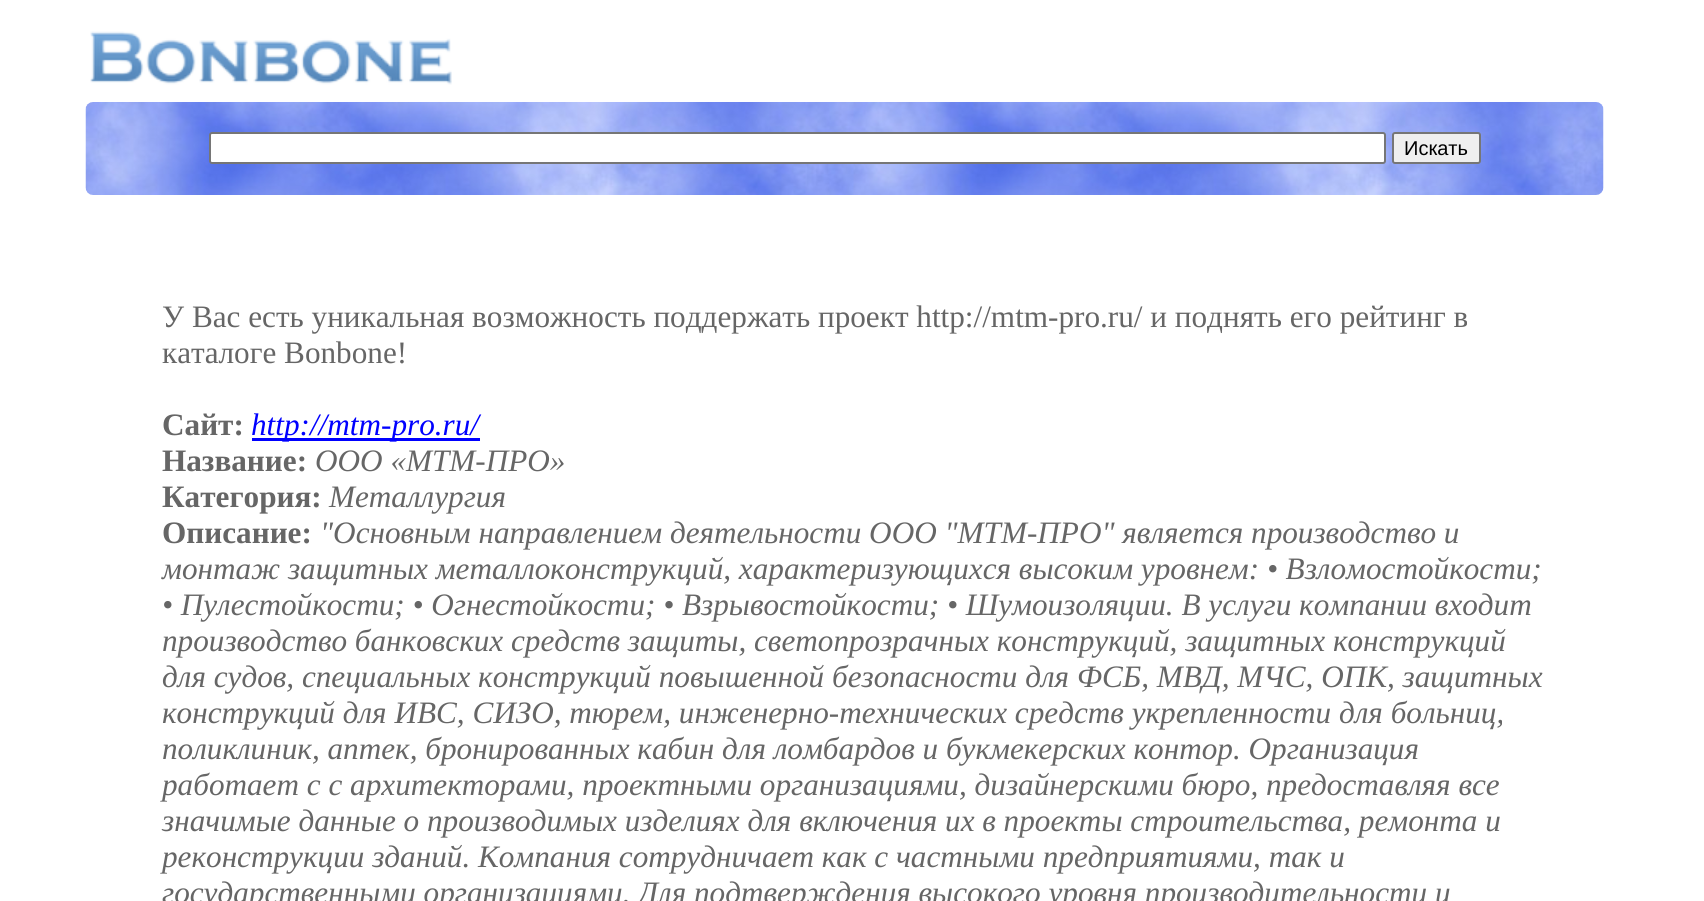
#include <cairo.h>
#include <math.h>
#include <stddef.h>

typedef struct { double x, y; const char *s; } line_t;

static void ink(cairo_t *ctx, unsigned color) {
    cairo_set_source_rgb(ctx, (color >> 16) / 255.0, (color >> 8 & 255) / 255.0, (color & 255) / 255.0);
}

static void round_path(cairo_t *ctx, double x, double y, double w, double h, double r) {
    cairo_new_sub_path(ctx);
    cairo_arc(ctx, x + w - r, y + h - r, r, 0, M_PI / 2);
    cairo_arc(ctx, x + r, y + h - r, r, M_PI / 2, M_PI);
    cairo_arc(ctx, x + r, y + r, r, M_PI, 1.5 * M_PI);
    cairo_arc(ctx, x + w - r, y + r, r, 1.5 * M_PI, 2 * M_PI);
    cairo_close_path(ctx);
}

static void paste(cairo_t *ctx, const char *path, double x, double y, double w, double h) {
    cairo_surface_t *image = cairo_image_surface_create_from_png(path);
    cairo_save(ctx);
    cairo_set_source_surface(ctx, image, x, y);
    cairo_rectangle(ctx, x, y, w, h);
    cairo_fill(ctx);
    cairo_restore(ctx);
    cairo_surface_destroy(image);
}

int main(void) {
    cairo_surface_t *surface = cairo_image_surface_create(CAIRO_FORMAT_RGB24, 1704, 901);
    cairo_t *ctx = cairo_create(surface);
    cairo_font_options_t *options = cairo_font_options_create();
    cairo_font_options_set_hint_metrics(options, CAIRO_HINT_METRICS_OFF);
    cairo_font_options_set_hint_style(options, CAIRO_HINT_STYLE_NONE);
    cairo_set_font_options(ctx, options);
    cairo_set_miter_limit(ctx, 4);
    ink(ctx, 0xFFFFFF);
    cairo_paint(ctx);
    paste(ctx, "media/1.png", 90, 31, 362, 54);
    paste(ctx, "media/2.png", 85, 102, 1519, 93);
    ink(ctx, 0xFFFFFF);
    round_path(ctx, 210, 133, 1175, 30, 2);
    cairo_fill_preserve(ctx);
    ink(ctx, 0x767676);
    cairo_stroke(ctx);
    ink(ctx, 0xEFEFEF);
    round_path(ctx, 1393, 133, 87, 30, 2);
    cairo_fill_preserve(ctx);
    ink(ctx, 0x767676);
    cairo_stroke(ctx);
    cairo_select_font_face(ctx, "Liberation Sans", CAIRO_FONT_SLANT_NORMAL, CAIRO_FONT_WEIGHT_NORMAL);
    cairo_set_font_size(ctx, 20);
    ink(ctx, 0x000000);
    cairo_move_to(ctx, 1404, 155);
    cairo_show_text(ctx, "Искать");
    cairo_select_font_face(ctx, "Liberation Serif", CAIRO_FONT_SLANT_NORMAL, CAIRO_FONT_WEIGHT_NORMAL);
    cairo_set_font_size(ctx, 31.2);
    ink(ctx, 0x666666);
    cairo_move_to(ctx, 162, 327);
    cairo_show_text(ctx, "У Вас есть уникальная возможность поддержать проект http://mtm-pro.ru/ и поднять его рейтинг в");
    cairo_move_to(ctx, 162, 363);
    cairo_show_text(ctx, "каталоге Bonbone!");
    cairo_select_font_face(ctx, "Liberation Serif", CAIRO_FONT_SLANT_NORMAL, CAIRO_FONT_WEIGHT_BOLD);
    cairo_move_to(ctx, 162, 435);
    cairo_show_text(ctx, "Сайт:");
    ink(ctx, 0x0000FF);
    cairo_rectangle(ctx, 252, 438, 228, 3);
    cairo_fill(ctx);
    cairo_select_font_face(ctx, "Liberation Serif", CAIRO_FONT_SLANT_ITALIC, CAIRO_FONT_WEIGHT_NORMAL);
    cairo_move_to(ctx, 251, 435);
    cairo_show_text(ctx, "http://mtm-pro.ru/");
    cairo_select_font_face(ctx, "Liberation Serif", CAIRO_FONT_SLANT_NORMAL, CAIRO_FONT_WEIGHT_BOLD);
    ink(ctx, 0x666666);
    cairo_move_to(ctx, 162, 471);
    cairo_show_text(ctx, "Название:");
    cairo_select_font_face(ctx, "Liberation Serif", CAIRO_FONT_SLANT_ITALIC, CAIRO_FONT_WEIGHT_NORMAL);
    cairo_move_to(ctx, 315, 471);
    cairo_show_text(ctx, "ООО «МТМ-ПРО»");
    cairo_select_font_face(ctx, "Liberation Serif", CAIRO_FONT_SLANT_NORMAL, CAIRO_FONT_WEIGHT_BOLD);
    cairo_move_to(ctx, 162, 507);
    cairo_show_text(ctx, "Категория:");
    cairo_select_font_face(ctx, "Liberation Serif", CAIRO_FONT_SLANT_ITALIC, CAIRO_FONT_WEIGHT_NORMAL);
    cairo_move_to(ctx, 329, 507);
    cairo_show_text(ctx, "Металлургия");
    cairo_select_font_face(ctx, "Liberation Serif", CAIRO_FONT_SLANT_NORMAL, CAIRO_FONT_WEIGHT_BOLD);
    cairo_move_to(ctx, 162, 543);
    cairo_show_text(ctx, "Описание:");
    cairo_select_font_face(ctx, "Liberation Serif", CAIRO_FONT_SLANT_ITALIC, CAIRO_FONT_WEIGHT_NORMAL);
    {
        static const line_t items[] = {
            {320, 543, "\"Основным направлением деятельности ООО \"МТМ-ПРО\" является производство и"},
            {162, 579, "монтаж защитных металлоконструкций, характеризующихся высоким уровнем: • Взломостойкости;"},
            {162, 615, "• Пулестойкости; • Огнестойкости; • Взрывостойкости; • Шумоизоляции. В услуги компании входит"},
            {162, 651, "производство банковских средств защиты, светопрозрачных конструкций, защитных конструкций"},
            {162, 687, "для судов, специальных конструкций повышенной безопасности для ФСБ, МВД, МЧС, ОПК, защитных"},
            {162, 723, "конструкций для ИВС, СИЗО, тюрем, инженерно-технических средств укрепленности для больниц,"},
            {162, 759, "поликлиник, аптек, бронированных кабин для ломбардов и букмекерских контор. Организация"},
            {162, 795, "работает с с архитекторами, проектными организациями, дизайнерскими бюро, предоставляя все"},
            {162, 831, "значимые данные о производимых изделиях для включения их в проекты строительства, ремонта и"},
            {162, 867, "реконструкции зданий. Компания сотрудничает как с частными предприятиями, так и"},
            {162, 903, "государственными организациями. Для подтверждения высокого уровня производительности и"},
        };
        for (size_t i = 0; i < sizeof items / sizeof *items; i++) {
            cairo_move_to(ctx, items[i].x, items[i].y);
            cairo_show_text(ctx, items[i].s);
        }
    }
    cairo_surface_write_to_png(surface, "image.png");
    cairo_font_options_destroy(options);
    cairo_destroy(ctx);
    cairo_surface_destroy(surface);
    return 0;
}
